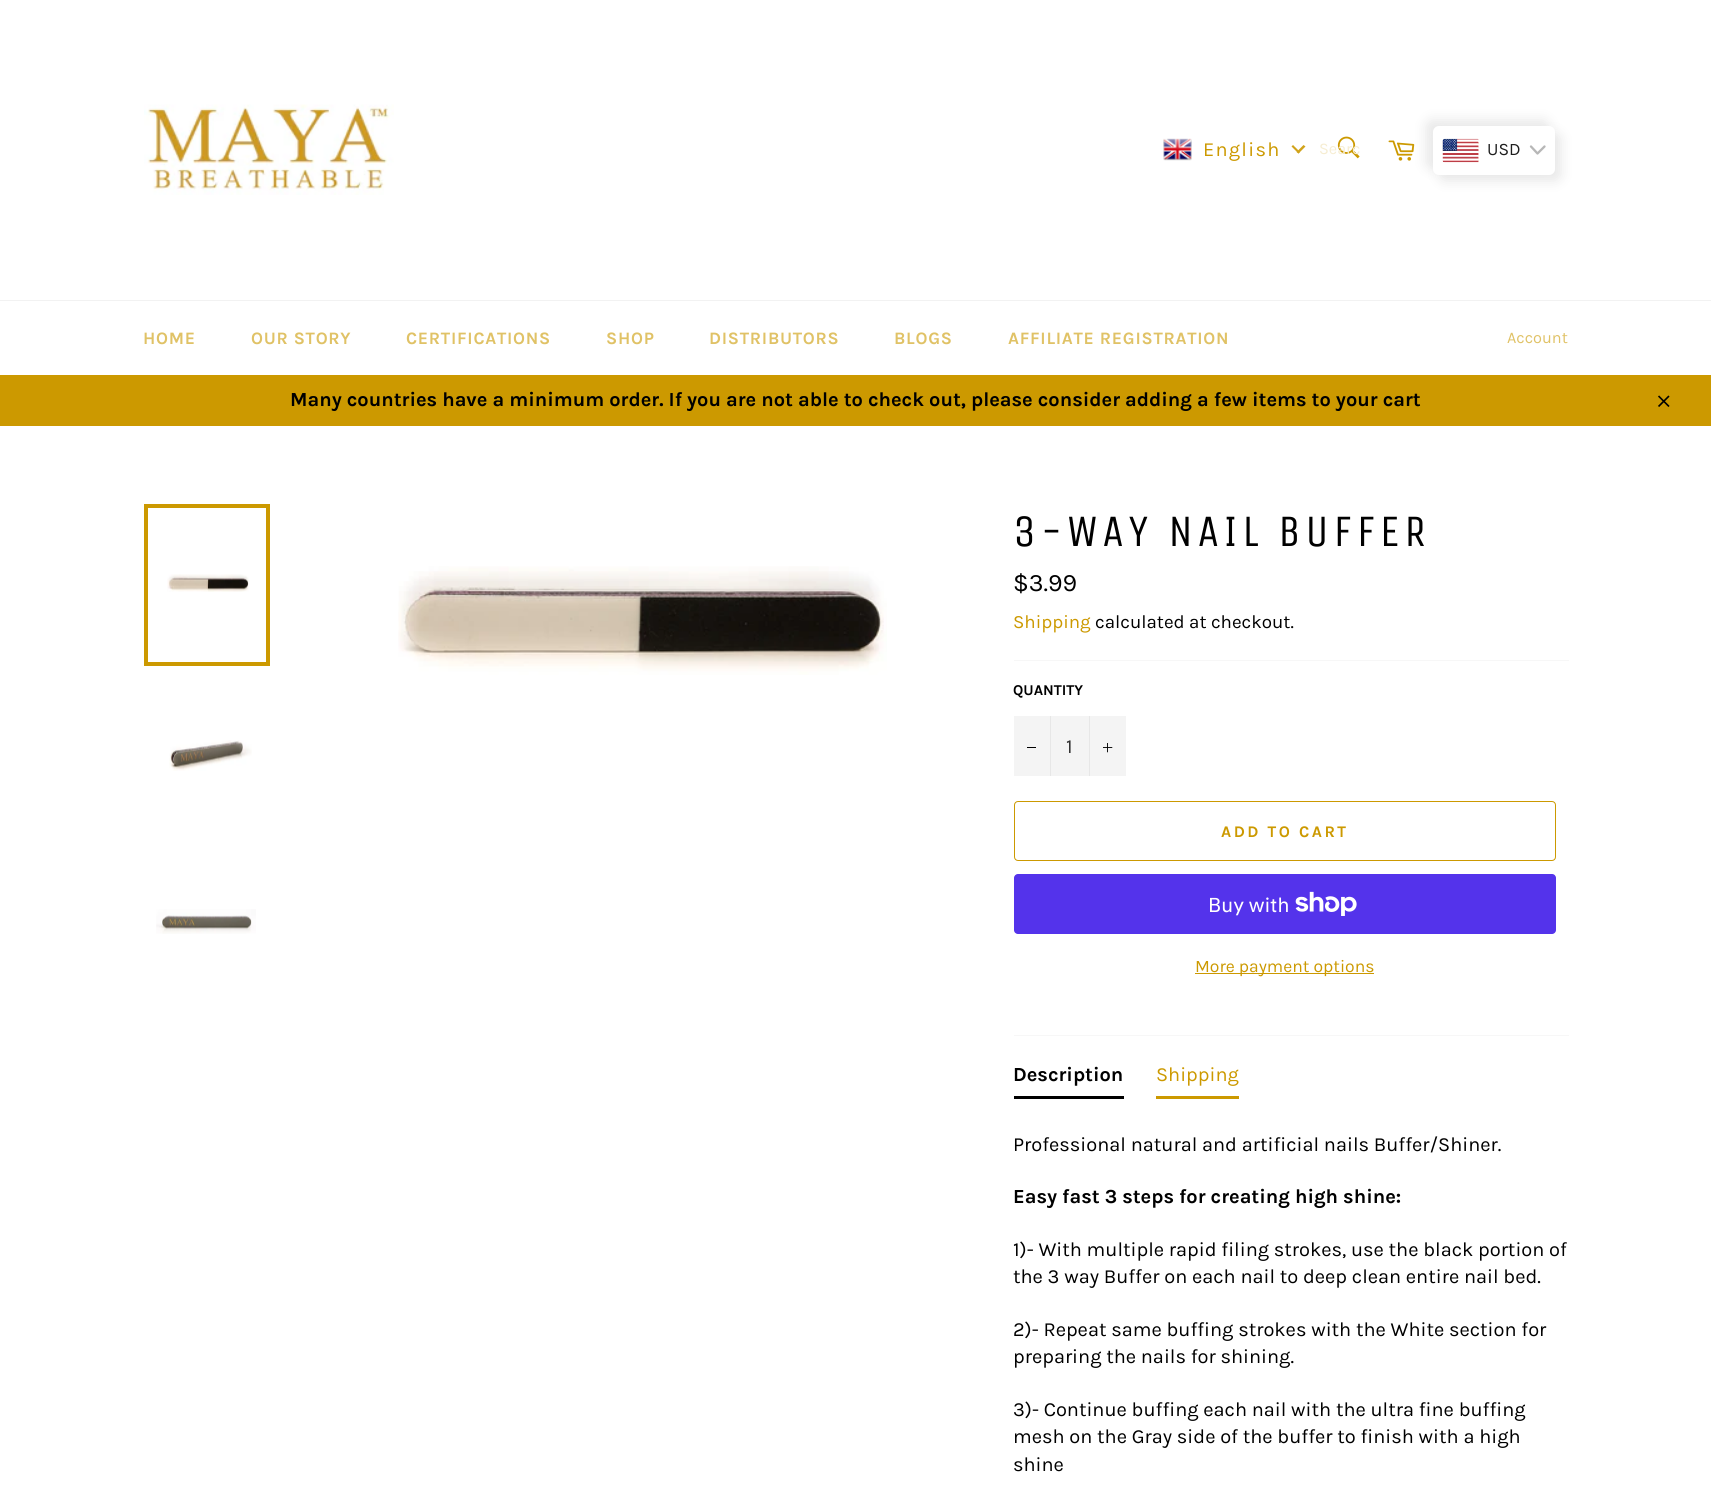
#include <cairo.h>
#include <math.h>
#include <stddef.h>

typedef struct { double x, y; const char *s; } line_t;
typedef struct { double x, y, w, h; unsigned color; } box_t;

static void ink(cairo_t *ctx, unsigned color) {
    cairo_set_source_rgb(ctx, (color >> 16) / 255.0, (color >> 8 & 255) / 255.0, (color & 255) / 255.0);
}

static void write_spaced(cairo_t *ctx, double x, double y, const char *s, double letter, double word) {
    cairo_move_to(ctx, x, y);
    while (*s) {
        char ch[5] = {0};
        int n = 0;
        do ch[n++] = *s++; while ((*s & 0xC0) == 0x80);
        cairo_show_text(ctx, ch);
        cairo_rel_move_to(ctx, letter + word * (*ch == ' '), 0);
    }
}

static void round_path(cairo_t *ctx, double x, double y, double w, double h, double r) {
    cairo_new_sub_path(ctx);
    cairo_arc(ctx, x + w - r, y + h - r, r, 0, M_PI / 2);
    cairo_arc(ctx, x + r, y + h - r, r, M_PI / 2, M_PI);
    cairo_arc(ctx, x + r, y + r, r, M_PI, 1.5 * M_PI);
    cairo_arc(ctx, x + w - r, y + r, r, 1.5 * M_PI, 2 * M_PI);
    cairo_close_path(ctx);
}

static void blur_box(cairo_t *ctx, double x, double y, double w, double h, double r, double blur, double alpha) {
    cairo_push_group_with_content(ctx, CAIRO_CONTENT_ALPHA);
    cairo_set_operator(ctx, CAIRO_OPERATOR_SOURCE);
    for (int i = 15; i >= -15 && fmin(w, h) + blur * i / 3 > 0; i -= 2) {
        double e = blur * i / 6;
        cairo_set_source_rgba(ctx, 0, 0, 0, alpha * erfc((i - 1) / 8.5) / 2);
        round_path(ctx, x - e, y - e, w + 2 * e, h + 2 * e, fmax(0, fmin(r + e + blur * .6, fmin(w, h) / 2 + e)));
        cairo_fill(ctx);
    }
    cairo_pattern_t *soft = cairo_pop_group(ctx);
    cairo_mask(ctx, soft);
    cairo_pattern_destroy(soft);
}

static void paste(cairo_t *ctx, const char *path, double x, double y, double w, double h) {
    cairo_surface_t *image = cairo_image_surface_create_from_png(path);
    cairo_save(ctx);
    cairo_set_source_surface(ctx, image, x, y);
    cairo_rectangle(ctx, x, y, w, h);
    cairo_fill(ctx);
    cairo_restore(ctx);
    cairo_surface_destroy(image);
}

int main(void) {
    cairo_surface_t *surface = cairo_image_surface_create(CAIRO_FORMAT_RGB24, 1711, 1503);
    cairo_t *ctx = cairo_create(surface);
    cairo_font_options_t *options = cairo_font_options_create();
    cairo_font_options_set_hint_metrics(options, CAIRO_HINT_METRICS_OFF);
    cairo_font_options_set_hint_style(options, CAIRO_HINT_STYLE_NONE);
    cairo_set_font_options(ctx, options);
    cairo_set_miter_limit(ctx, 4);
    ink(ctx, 0xFFFFFF);
    cairo_paint(ctx);
    paste(ctx, "media/1.png", 144, 104, 250, 91);
    paste(ctx, "media/2.png", 1163, 138, 29, 23);
    cairo_select_font_face(ctx, "Karla", CAIRO_FONT_SLANT_NORMAL, CAIRO_FONT_WEIGHT_NORMAL);
    cairo_set_font_size(ctx, 20);
    ink(ctx, 0xCC9900);
    write_spaced(ctx, 1203, 156, "English", 1.25, 0);
    ink(ctx, 0xD1A31A);
    cairo_new_path(ctx);
    cairo_move_to(ctx, 1303.5, 145);
    cairo_line_to(ctx, 1305.5, 146.5);
    cairo_line_to(ctx, 1298.5, 153.5);
    cairo_line_to(ctx, 1296.5, 152);
    cairo_close_path(ctx);
    cairo_fill(ctx);
    cairo_new_path(ctx);
    cairo_move_to(ctx, 1293, 145);
    cairo_line_to(ctx, 1300, 152);
    cairo_line_to(ctx, 1298.5, 153.5);
    cairo_line_to(ctx, 1291.5, 146.5);
    cairo_close_path(ctx);
    cairo_fill(ctx);
    paste(ctx, "media/3.png", 1337, 136, 23, 23);
    cairo_set_font_size(ctx, 16.25);
    ink(ctx, 0xF6EDD2);
    cairo_move_to(ctx, 1319, 154);
    cairo_show_text(ctx, "Searc");
    paste(ctx, "media/4.png", 1388, 140, 27, 21);
    ink(ctx, 0xE8E8E8);
    blur_box(ctx, 1426, 120, 123, 49, 6, 6, 1);
    blur_box(ctx, 1439, 133, 122, 48, 6, 6, 1);
    ink(ctx, 0xFFFFFF);
    round_path(ctx, 1433, 126, 122, 49, 6);
    cairo_fill(ctx);
    paste(ctx, "media/5.png", 1442, 138, 37, 25);
    cairo_set_font_size(ctx, 17.5);
    ink(ctx, 0x1E1E1E);
    cairo_move_to(ctx, 1487, 155);
    cairo_show_text(ctx, "USD");
    cairo_new_path(ctx);
    cairo_move_to(ctx, 1531, 146.5);
    cairo_line_to(ctx, 1537.5, 153.5);
    cairo_line_to(ctx, 1544.5, 146.5);
    ink(ctx, 0xB7B7B7);
    cairo_set_line_width(ctx, 2.3);
    cairo_set_line_cap(ctx, CAIRO_LINE_CAP_ROUND);
    cairo_set_line_join(ctx, CAIRO_LINE_JOIN_ROUND);
    cairo_stroke(ctx);
    ink(ctx, 0xF2F2F2);
    cairo_rectangle(ctx, 0, 300, 1711, 1);
    cairo_fill(ctx);
    cairo_select_font_face(ctx, "Karla", CAIRO_FONT_SLANT_NORMAL, CAIRO_FONT_WEIGHT_BOLD);
    ink(ctx, 0xE0C266);
    {
        static const line_t items[] = {
            {143, 344, "HOME"},
            {251, 344, "OUR STORY"},
            {406, 344, "CERTIFICATIONS"},
            {606, 344, "SHOP"},
            {709, 344, "DISTRIBUTORS"},
            {894, 344, "BLOGS"},
            {1008, 344, "AFFILIATE REGISTRATION"},
        };
        for (size_t i = 0; i < sizeof items / sizeof *items; i++) {
            write_spaced(ctx, items[i].x, items[i].y, items[i].s, 0.75, 0);
        }
    }
    cairo_select_font_face(ctx, "Karla", CAIRO_FONT_SLANT_NORMAL, CAIRO_FONT_WEIGHT_NORMAL);
    cairo_set_font_size(ctx, 16.25);
    cairo_move_to(ctx, 1507, 343);
    cairo_show_text(ctx, "Account");
    ink(ctx, 0xCC9900);
    cairo_rectangle(ctx, 0, 375, 1711, 51);
    cairo_fill(ctx);
    cairo_select_font_face(ctx, "Karla", CAIRO_FONT_SLANT_NORMAL, CAIRO_FONT_WEIGHT_BOLD);
    cairo_set_font_size(ctx, 20);
    ink(ctx, 0x000000);
    cairo_move_to(ctx, 290, 406);
    cairo_show_text(ctx, "Many countries have a minimum order. If you are not able to check out, please consider adding a few items to your cart");
    paste(ctx, "media/6.png", 1658, 395, 12, 12);
    paste(ctx, "media/7.png", 167, 574, 82, 18);
    cairo_rectangle(ctx, 146, 506, 122, 158);
    ink(ctx, 0xCC9900);
    cairo_set_line_width(ctx, 4);
    cairo_set_line_cap(ctx, CAIRO_LINE_CAP_BUTT);
    cairo_set_line_join(ctx, CAIRO_LINE_JOIN_MITER);
    cairo_stroke(ctx);
    paste(ctx, "media/8.png", 169, 740, 83, 31);
    paste(ctx, "media/9.png", 156, 909, 100, 25);
    paste(ctx, "media/10.png", 398, 566, 489, 109);
    cairo_select_font_face(ctx, "Unica One", CAIRO_FONT_SLANT_NORMAL, CAIRO_FONT_WEIGHT_NORMAL);
    cairo_set_font_size(ctx, 45);
    ink(ctx, 0x000000);
    write_spaced(ctx, 1013, 546, "3-WAY NAIL BUFFER", 4.5, 0);
    cairo_select_font_face(ctx, "Karla", CAIRO_FONT_SLANT_NORMAL, CAIRO_FONT_WEIGHT_NORMAL);
    cairo_set_font_size(ctx, 25);
    cairo_move_to(ctx, 1013, 591);
    cairo_show_text(ctx, "$3.99");
    cairo_set_font_size(ctx, 18.75);
    ink(ctx, 0xCC9900);
    cairo_move_to(ctx, 1013, 628);
    cairo_show_text(ctx, "Shipping");
    ink(ctx, 0x000000);
    cairo_move_to(ctx, 1095, 628);
    cairo_show_text(ctx, "calculated at checkout.");
    ink(ctx, 0xF7F7F7);
    cairo_rectangle(ctx, 1014, 660, 555, 1);
    cairo_fill(ctx);
    cairo_select_font_face(ctx, "Karla", CAIRO_FONT_SLANT_NORMAL, CAIRO_FONT_WEIGHT_BOLD);
    cairo_set_font_size(ctx, 15);
    ink(ctx, 0x000000);
    cairo_move_to(ctx, 1013, 695);
    cairo_show_text(ctx, "QUANTITY");
    {
        static const box_t items[] = {
            {1014, 716, 112, 60, 0xF4F4F4},
            {1050, 716, 1, 60, 0xE7E7E7},
            {1027, 747, 9, 1, 0x000000},
        };
        for (size_t i = 0; i < sizeof items / sizeof *items; i++) {
            ink(ctx, items[i].color);
            cairo_rectangle(ctx, items[i].x, items[i].y, items[i].w, items[i].h);
            cairo_fill(ctx);
        }
    }
    cairo_select_font_face(ctx, "Karla", CAIRO_FONT_SLANT_NORMAL, CAIRO_FONT_WEIGHT_NORMAL);
    cairo_set_font_size(ctx, 20);
    ink(ctx, 0x333333);
    cairo_move_to(ctx, 1066, 753);
    cairo_show_text(ctx, "1");
    ink(ctx, 0xE7E7E7);
    cairo_rectangle(ctx, 1089, 716, 1, 60);
    cairo_fill(ctx);
    paste(ctx, "media/11.png", 1103, 743, 10, 10);
    round_path(ctx, 1014.5, 801.5, 541, 59, 3.5);
    ink(ctx, 0xCC9900);
    cairo_set_line_width(ctx, 1);
    cairo_stroke(ctx);
    cairo_select_font_face(ctx, "Karla", CAIRO_FONT_SLANT_NORMAL, CAIRO_FONT_WEIGHT_BOLD);
    cairo_set_font_size(ctx, 16.25);
    write_spaced(ctx, 1221, 837, "ADD TO CART", 2.5, 0);
    ink(ctx, 0x5433EB);
    round_path(ctx, 1014, 874, 542, 60, 4);
    cairo_fill(ctx);
    cairo_select_font_face(ctx, "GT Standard", CAIRO_FONT_SLANT_NORMAL, CAIRO_FONT_WEIGHT_NORMAL);
    cairo_set_font_size(ctx, 20);
    ink(ctx, 0xFFFFFF);
    cairo_move_to(ctx, 1208, 912);
    cairo_show_text(ctx, "Buy with");
    paste(ctx, "media/12.png", 1295, 891, 62, 25);
    ink(ctx, 0xCC9900);
    cairo_rectangle(ctx, 1195, 973, 179, 1);
    cairo_fill(ctx);
    cairo_select_font_face(ctx, "Karla", CAIRO_FONT_SLANT_NORMAL, CAIRO_FONT_WEIGHT_NORMAL);
    cairo_set_font_size(ctx, 17.5);
    cairo_move_to(ctx, 1195, 972);
    cairo_show_text(ctx, "More payment options");
    ink(ctx, 0xF7F7F7);
    cairo_rectangle(ctx, 1014, 1035, 555, 1);
    cairo_fill(ctx);
    ink(ctx, 0x000000);
    cairo_rectangle(ctx, 1014, 1096, 110, 3);
    cairo_fill(ctx);
    cairo_select_font_face(ctx, "Karla", CAIRO_FONT_SLANT_NORMAL, CAIRO_FONT_WEIGHT_BOLD);
    cairo_set_font_size(ctx, 20);
    cairo_move_to(ctx, 1013, 1081);
    cairo_show_text(ctx, "Description");
    ink(ctx, 0xCC9900);
    cairo_rectangle(ctx, 1156, 1096, 83, 3);
    cairo_fill(ctx);
    cairo_select_font_face(ctx, "Karla", CAIRO_FONT_SLANT_NORMAL, CAIRO_FONT_WEIGHT_NORMAL);
    cairo_move_to(ctx, 1156, 1081);
    cairo_show_text(ctx, "Shipping");
    ink(ctx, 0x000000);
    cairo_move_to(ctx, 1013, 1151);
    cairo_show_text(ctx, "Professional natural and artificial nails Buffer/Shiner.");
    cairo_select_font_face(ctx, "Karla", CAIRO_FONT_SLANT_NORMAL, CAIRO_FONT_WEIGHT_BOLD);
    cairo_move_to(ctx, 1013, 1203);
    cairo_show_text(ctx, "Easy fast 3 steps for creating high shine:");
    cairo_select_font_face(ctx, "Karla", CAIRO_FONT_SLANT_NORMAL, CAIRO_FONT_WEIGHT_NORMAL);
    {
        static const line_t items[] = {
            {1013, 1256, "1)- With multiple rapid filing strokes, use the black portion of"},
            {1013, 1283, "the 3 way Buffer on each nail to deep clean entire nail bed."},
            {1013, 1336, "2)- Repeat same buffing strokes with the White section for"},
            {1013, 1363, "preparing the nails for shining."},
            {1013, 1416, "3)- Continue buffing each nail with the ultra fine buffing"},
            {1013, 1443, "mesh on the Gray side of the buffer to finish with a high"},
            {1013, 1471, "shine"},
        };
        for (size_t i = 0; i < sizeof items / sizeof *items; i++) {
            cairo_move_to(ctx, items[i].x, items[i].y);
            cairo_show_text(ctx, items[i].s);
        }
    }
    cairo_surface_write_to_png(surface, "image.png");
    cairo_font_options_destroy(options);
    cairo_destroy(ctx);
    cairo_surface_destroy(surface);
    return 0;
}
